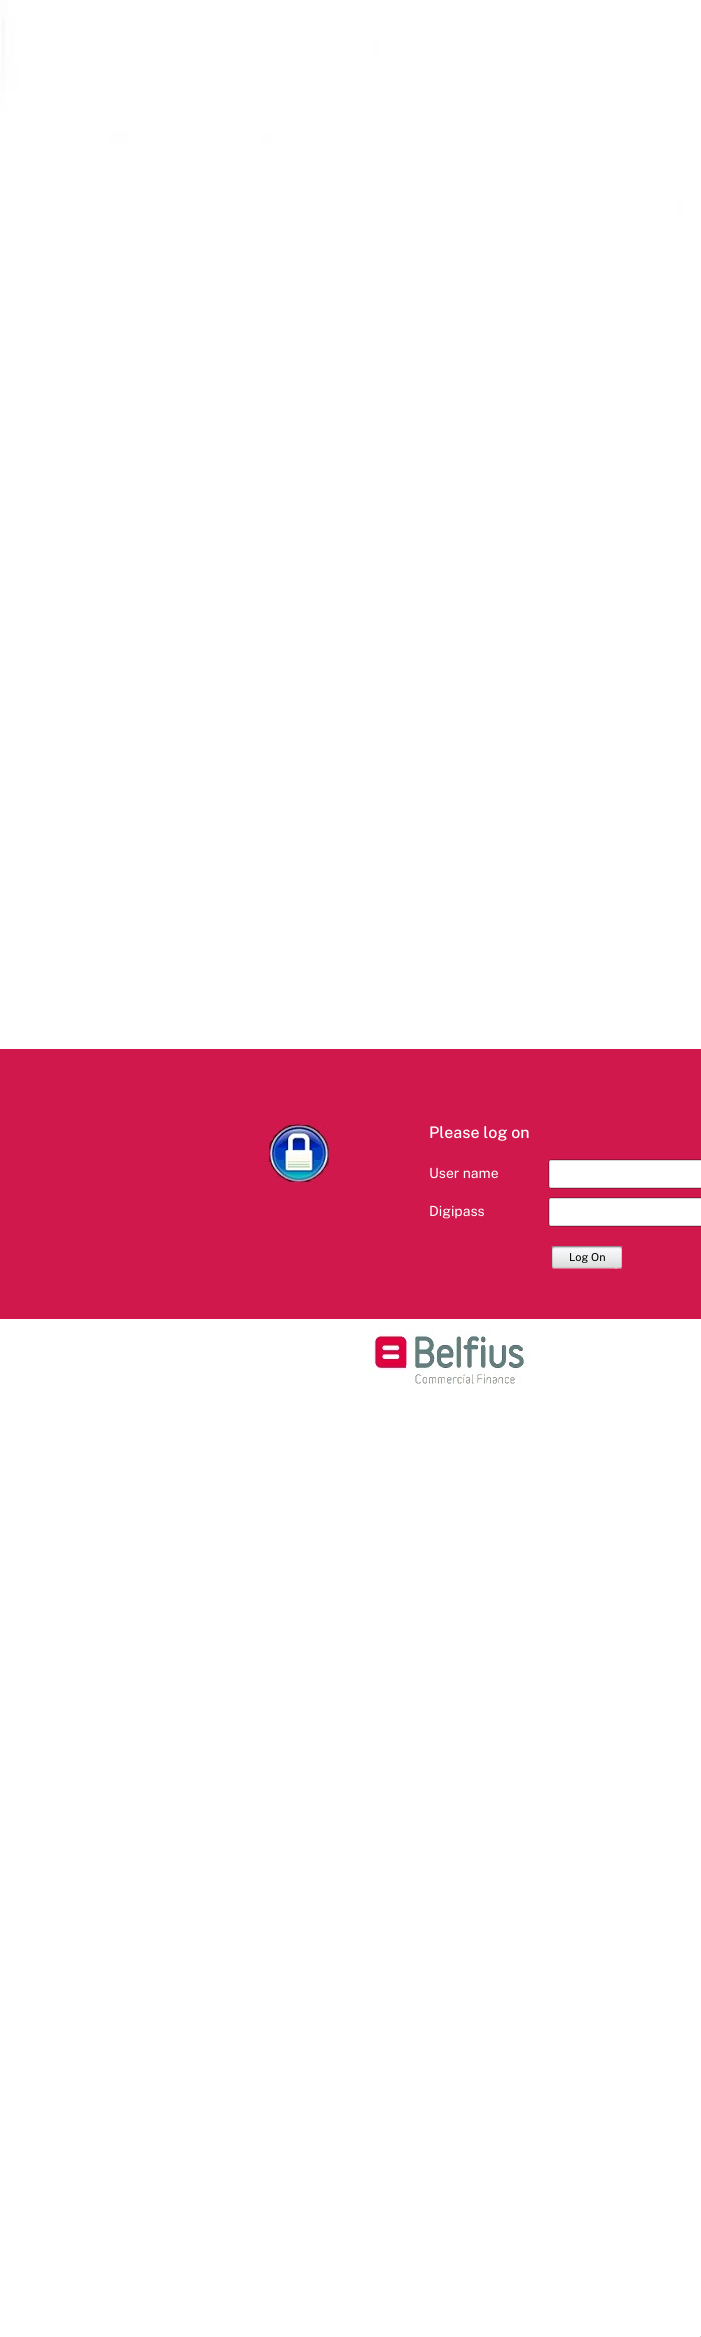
#include <cairo.h>
#include <math.h>
#include <stddef.h>


static void ink(cairo_t *ctx, unsigned color) {
    cairo_set_source_rgb(ctx, (color >> 16) / 255.0, (color >> 8 & 255) / 255.0, (color & 255) / 255.0);
}

static void round_path(cairo_t *ctx, double x, double y, double w, double h, double r) {
    cairo_new_sub_path(ctx);
    cairo_arc(ctx, x + w - r, y + h - r, r, 0, M_PI / 2);
    cairo_arc(ctx, x + r, y + h - r, r, M_PI / 2, M_PI);
    cairo_arc(ctx, x + r, y + r, r, M_PI, 1.5 * M_PI);
    cairo_arc(ctx, x + w - r, y + r, r, 1.5 * M_PI, 2 * M_PI);
    cairo_close_path(ctx);
}

static void blur_box(cairo_t *ctx, double x, double y, double w, double h, double r, double blur, double alpha) {
    cairo_push_group_with_content(ctx, CAIRO_CONTENT_ALPHA);
    cairo_set_operator(ctx, CAIRO_OPERATOR_SOURCE);
    for (int i = 15; i >= -15 && fmin(w, h) + blur * i / 3 > 0; i -= 2) {
        double e = blur * i / 6;
        cairo_set_source_rgba(ctx, 0, 0, 0, alpha * erfc((i - 1) / 8.5) / 2);
        round_path(ctx, x - e, y - e, w + 2 * e, h + 2 * e, fmax(0, fmin(r + e + blur * .6, fmin(w, h) / 2 + e)));
        cairo_fill(ctx);
    }
    cairo_pattern_t *soft = cairo_pop_group(ctx);
    cairo_mask(ctx, soft);
    cairo_pattern_destroy(soft);
}

static void paste(cairo_t *ctx, const char *path, double x, double y, double w, double h) {
    cairo_surface_t *image = cairo_image_surface_create_from_png(path);
    cairo_save(ctx);
    cairo_set_source_surface(ctx, image, x, y);
    cairo_rectangle(ctx, x, y, w, h);
    cairo_fill(ctx);
    cairo_restore(ctx);
    cairo_surface_destroy(image);
}

int main(void) {
    cairo_surface_t *surface = cairo_image_surface_create(CAIRO_FORMAT_RGB24, 701, 2337);
    cairo_t *ctx = cairo_create(surface);
    cairo_font_options_t *options = cairo_font_options_create();
    cairo_font_options_set_hint_metrics(options, CAIRO_HINT_METRICS_OFF);
    cairo_font_options_set_hint_style(options, CAIRO_HINT_STYLE_NONE);
    cairo_set_font_options(ctx, options);
    cairo_set_miter_limit(ctx, 4);
    ink(ctx, 0xFFFFFF);
    cairo_paint(ctx);
    paste(ctx, "media/1.png", 0, 0, 701, 2337);
    ink(ctx, 0xD1184D);
    cairo_rectangle(ctx, 0, 1049, 701, 270);
    cairo_fill(ctx);
    paste(ctx, "media/2.png", 269, 1123, 60, 60);
    cairo_select_font_face(ctx, "Public Sans Medium", CAIRO_FONT_SLANT_NORMAL, CAIRO_FONT_WEIGHT_NORMAL);
    cairo_set_font_size(ctx, 16);
    ink(ctx, 0xFFFFFF);
    cairo_move_to(ctx, 429, 1138);
    cairo_show_text(ctx, "Please log on");
    cairo_select_font_face(ctx, "Public Sans", CAIRO_FONT_SLANT_NORMAL, CAIRO_FONT_WEIGHT_NORMAL);
    cairo_set_font_size(ctx, 14);
    cairo_move_to(ctx, 429, 1178);
    cairo_show_text(ctx, "User name");
    ink(ctx, 0x000000);
    blur_box(ctx, 549, 1160, 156, 28, 2, 0.5, 1);
    ink(ctx, 0xFFFFFF);
    round_path(ctx, 549.5, 1160.5, 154, 27, 1.5);
    cairo_fill_preserve(ctx);
    ink(ctx, 0xD3D6D5);
    cairo_set_line_width(ctx, 1);
    cairo_stroke(ctx);
    ink(ctx, 0xFFFFFF);
    cairo_move_to(ctx, 429, 1216);
    cairo_show_text(ctx, "Digipass");
    ink(ctx, 0x000000);
    blur_box(ctx, 549, 1198, 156, 28, 2, 0.5, 1);
    ink(ctx, 0xFFFFFF);
    round_path(ctx, 549.5, 1198.5, 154, 27, 1.5);
    cairo_fill_preserve(ctx);
    ink(ctx, 0xD3D6D5);
    cairo_stroke(ctx);
    paste(ctx, "media/3.png", 551, 1246, 71, 23);
    cairo_set_font_size(ctx, 11);
    ink(ctx, 0x000000);
    cairo_move_to(ctx, 569, 1261);
    cairo_show_text(ctx, "Log On");
    paste(ctx, "media/4.png", 370, 1329, 160, 56);
    ink(ctx, 0xCBCBCB);
    cairo_rectangle(ctx, 700, 2336, 1, 1);
    cairo_fill(ctx);
    cairo_surface_write_to_png(surface, "image.png");
    cairo_font_options_destroy(options);
    cairo_destroy(ctx);
    cairo_surface_destroy(surface);
    return 0;
}
